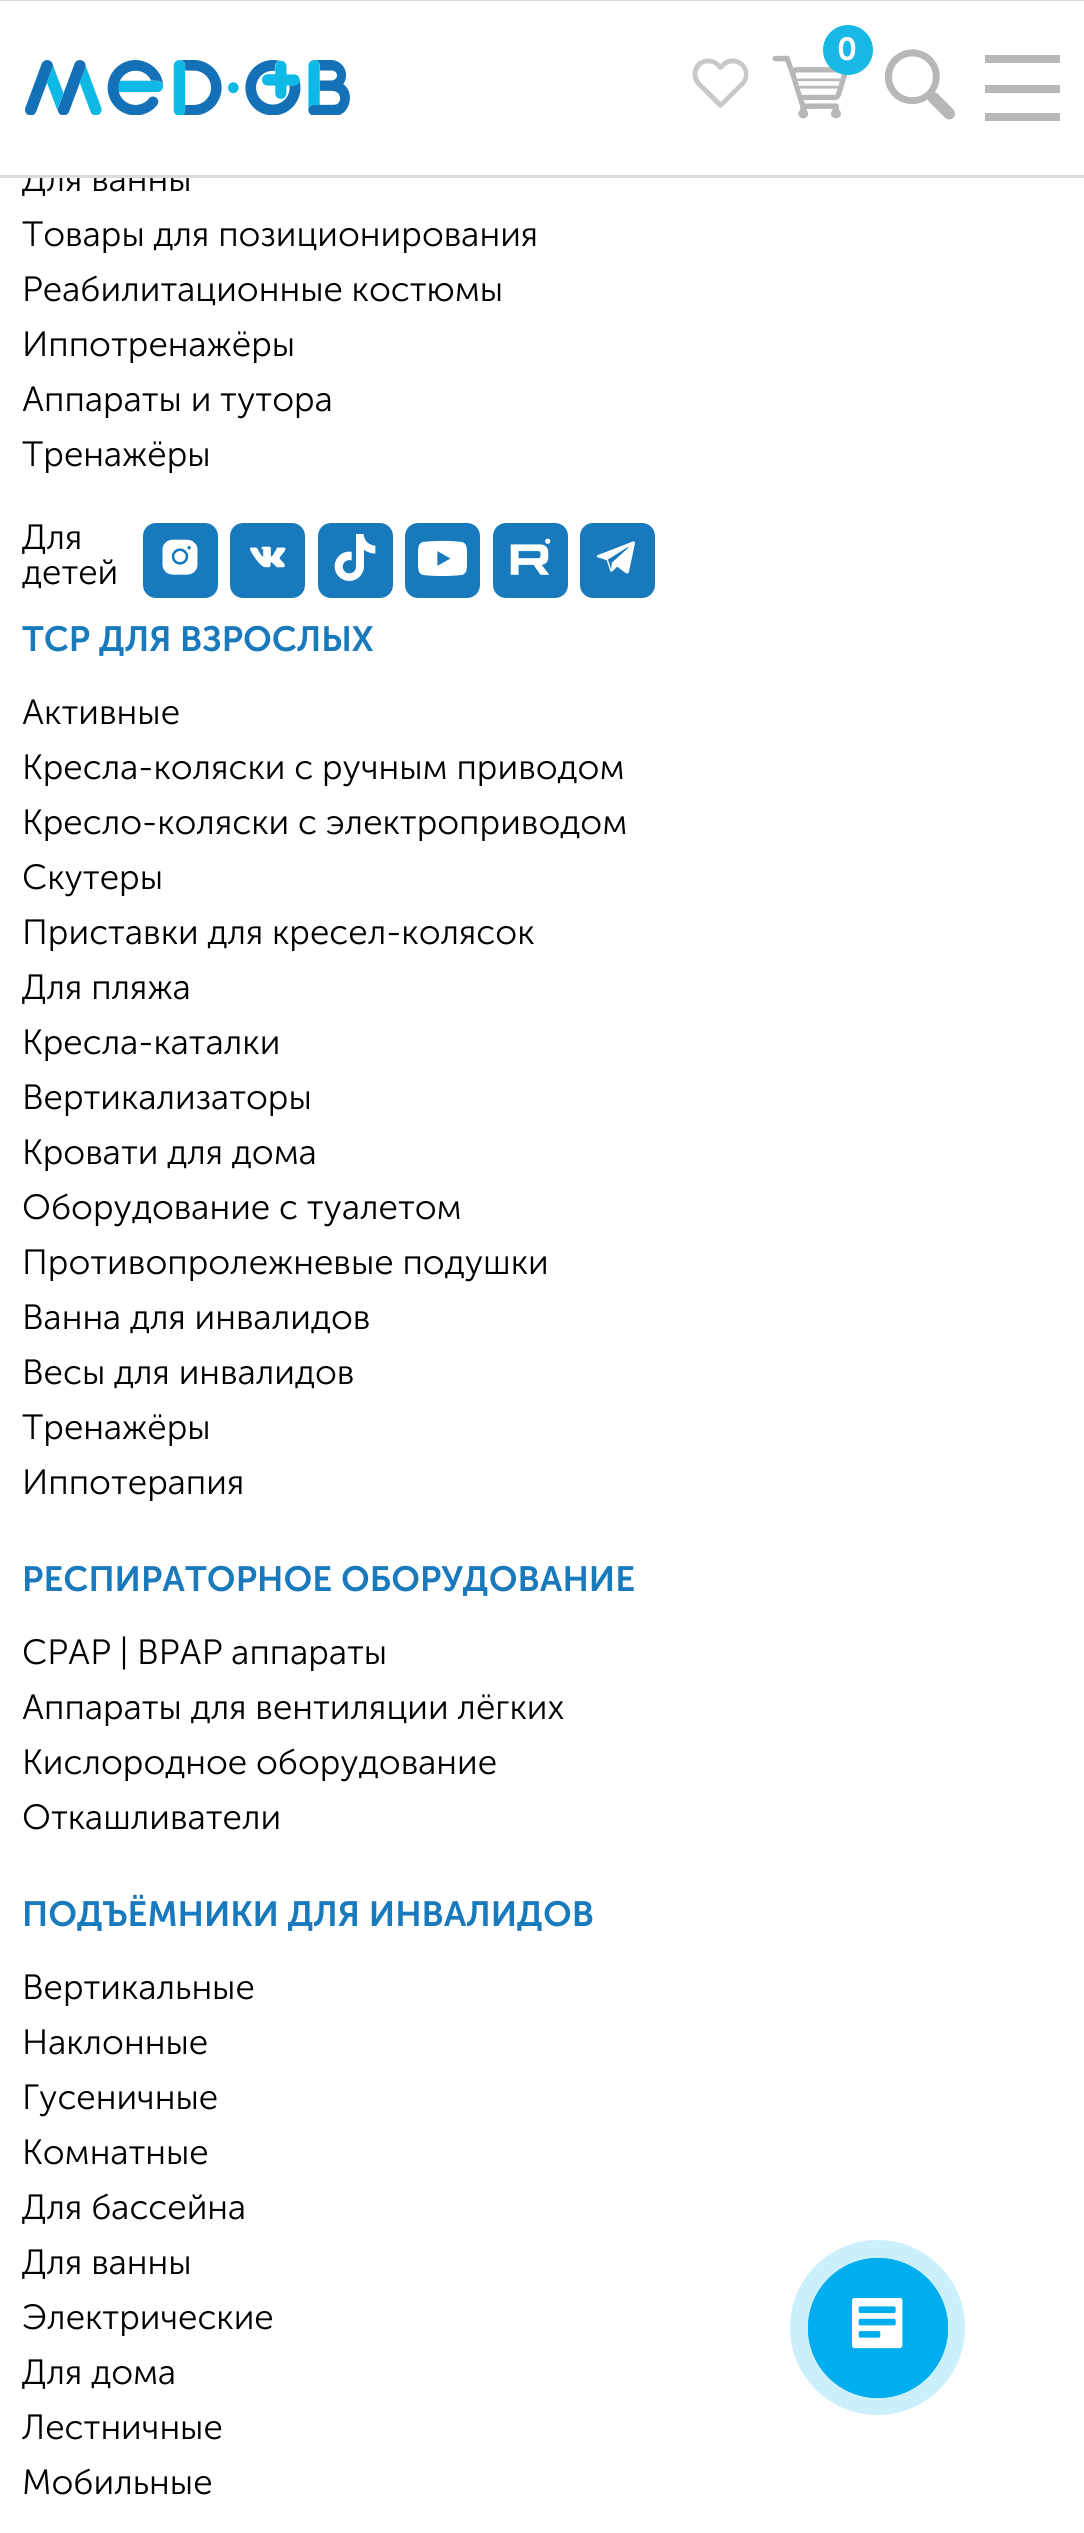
#include <cairo.h>
#include <math.h>
#include <stddef.h>

typedef struct { double x, y; const char *s; } line_t;
typedef struct { double x, y, w, h; unsigned color; } box_t;

static void ink(cairo_t *ctx, unsigned color) {
    cairo_set_source_rgb(ctx, (color >> 16) / 255.0, (color >> 8 & 255) / 255.0, (color & 255) / 255.0);
}

static void round_path(cairo_t *ctx, double x, double y, double w, double h, double r) {
    cairo_new_sub_path(ctx);
    cairo_arc(ctx, x + w - r, y + h - r, r, 0, M_PI / 2);
    cairo_arc(ctx, x + r, y + h - r, r, M_PI / 2, M_PI);
    cairo_arc(ctx, x + r, y + r, r, M_PI, 1.5 * M_PI);
    cairo_arc(ctx, x + w - r, y + r, r, 1.5 * M_PI, 2 * M_PI);
    cairo_close_path(ctx);
}

static void paste(cairo_t *ctx, const char *path, double x, double y, double w, double h) {
    cairo_surface_t *image = cairo_image_surface_create_from_png(path);
    cairo_save(ctx);
    cairo_set_source_surface(ctx, image, x, y);
    cairo_rectangle(ctx, x, y, w, h);
    cairo_fill(ctx);
    cairo_restore(ctx);
    cairo_surface_destroy(image);
}

int main(void) {
    cairo_surface_t *surface = cairo_image_surface_create(CAIRO_FORMAT_RGB24, 1084, 2533);
    cairo_t *ctx = cairo_create(surface);
    cairo_font_options_t *options = cairo_font_options_create();
    cairo_font_options_set_hint_metrics(options, CAIRO_HINT_METRICS_OFF);
    cairo_font_options_set_hint_style(options, CAIRO_HINT_STYLE_NONE);
    cairo_set_font_options(ctx, options);
    cairo_set_miter_limit(ctx, 4);
    ink(ctx, 0xFFFFFF);
    cairo_paint(ctx);
    cairo_select_font_face(ctx, "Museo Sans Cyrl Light", CAIRO_FONT_SLANT_NORMAL, CAIRO_FONT_WEIGHT_NORMAL);
    cairo_set_font_size(ctx, 35);
    ink(ctx, 0x000000);
    cairo_move_to(ctx, 22, 191);
    cairo_show_text(ctx, "Для ванны");
    {
        static const box_t items[] = {
            {28, 166, 161, 9, 0xFFFFFF},
            {0, 175, 1084, 3, 0xDBDBDB},
            {0, 0, 1084, 1, 0xDBDBDB},
        };
        for (size_t i = 0; i < sizeof items / sizeof *items; i++) {
            ink(ctx, items[i].color);
            cairo_rectangle(ctx, items[i].x, items[i].y, items[i].w, items[i].h);
            cairo_fill(ctx);
        }
    }
    paste(ctx, "media/1.png", 692, 58, 57, 50);
    paste(ctx, "media/2.png", 772, 55, 76, 64);
    ink(ctx, 0x19B9E6);
    cairo_arc(ctx, 848, 50, 25, 0, 2 * M_PI);
    cairo_fill(ctx);
    cairo_select_font_face(ctx, "Museo Sans Cyrl SemiBold", CAIRO_FONT_SLANT_NORMAL, CAIRO_FONT_WEIGHT_NORMAL);
    cairo_set_font_size(ctx, 32);
    ink(ctx, 0xFFFEFE);
    cairo_move_to(ctx, 837, 60);
    cairo_show_text(ctx, "0");
    paste(ctx, "media/3.png", 884, 49, 71, 71);
    {
        static const box_t items[] = {
            {985, 55, 75, 8, 0xB7B7B7},
            {985, 113, 75, 8, 0xB7B7B7},
            {985, 85, 75, 8, 0xB7B7B7},
        };
        for (size_t i = 0; i < sizeof items / sizeof *items; i++) {
            ink(ctx, items[i].color);
            cairo_rectangle(ctx, items[i].x, items[i].y, items[i].w, items[i].h);
            cairo_fill(ctx);
        }
    }
    paste(ctx, "media/4.png", 25, 60, 325, 55);
    cairo_select_font_face(ctx, "Museo Sans Cyrl Light", CAIRO_FONT_SLANT_NORMAL, CAIRO_FONT_WEIGHT_NORMAL);
    cairo_set_font_size(ctx, 35);
    ink(ctx, 0x000000);
    {
        static const line_t items[] = {
            {22, 246, "Товары для позиционирования"},
            {22, 301, "Реабилитационные костюмы"},
            {22, 356, "Иппотренажёры"},
            {22, 411, "Аппараты и тутора"},
            {22, 466, "Тренажёры"},
            {22, 549, "Для"},
            {22, 584, "детей"},
        };
        for (size_t i = 0; i < sizeof items / sizeof *items; i++) {
            cairo_move_to(ctx, items[i].x, items[i].y);
            cairo_show_text(ctx, items[i].s);
        }
    }
    ink(ctx, 0x187ABC);
    round_path(ctx, 143, 523, 75, 75, 13);
    cairo_fill(ctx);
    paste(ctx, "media/5.png", 162, 539, 36, 36);
    round_path(ctx, 230, 523, 75, 75, 13);
    cairo_fill(ctx);
    paste(ctx, "media/6.png", 250, 546, 36, 22);
    round_path(ctx, 318, 523, 75, 75, 13);
    cairo_fill(ctx);
    paste(ctx, "media/7.png", 334, 534, 42, 47);
    round_path(ctx, 405, 523, 75, 75, 13);
    cairo_fill(ctx);
    paste(ctx, "media/8.png", 418, 540, 49, 36);
    round_path(ctx, 493, 523, 75, 75, 13);
    cairo_fill(ctx);
    paste(ctx, "media/9.png", 510, 538, 41, 37);
    round_path(ctx, 580, 523, 75, 75, 13);
    cairo_fill(ctx);
    paste(ctx, "media/10.png", 596, 541, 39, 33);
    cairo_select_font_face(ctx, "Museo Sans Cyrl SemiBold", CAIRO_FONT_SLANT_NORMAL, CAIRO_FONT_WEIGHT_NORMAL);
    cairo_move_to(ctx, 22, 651);
    cairo_show_text(ctx, "ТСР ДЛЯ ВЗРОСЛЫХ");
    cairo_select_font_face(ctx, "Museo Sans Cyrl Light", CAIRO_FONT_SLANT_NORMAL, CAIRO_FONT_WEIGHT_NORMAL);
    ink(ctx, 0x000000);
    {
        static const line_t items[] = {
            {22, 724, "Активные"},
            {22, 779, "Кресла-коляски с ручным приводом"},
            {22, 834, "Кресло-коляски с электроприводом"},
            {22, 889, "Скутеры"},
            {22, 944, "Приставки для кресел-колясок"},
            {22, 999, "Для пляжа"},
            {22, 1054, "Кресла-каталки"},
            {22, 1109, "Вертикализаторы"},
            {22, 1164, "Кровати для дома"},
            {22, 1219, "Оборудование с туалетом"},
            {22, 1274, "Противопролежневые подушки"},
            {22, 1329, "Ванна для инвалидов"},
            {22, 1384, "Весы для инвалидов"},
            {22, 1439, "Тренажёры"},
            {22, 1494, "Иппотерапия"},
        };
        for (size_t i = 0; i < sizeof items / sizeof *items; i++) {
            cairo_move_to(ctx, items[i].x, items[i].y);
            cairo_show_text(ctx, items[i].s);
        }
    }
    cairo_select_font_face(ctx, "Museo Sans Cyrl SemiBold", CAIRO_FONT_SLANT_NORMAL, CAIRO_FONT_WEIGHT_NORMAL);
    ink(ctx, 0x187ABC);
    cairo_move_to(ctx, 22, 1591);
    cairo_show_text(ctx, "РЕСПИРАТОРНОЕ ОБОРУДОВАНИЕ");
    cairo_select_font_face(ctx, "Museo Sans Cyrl Light", CAIRO_FONT_SLANT_NORMAL, CAIRO_FONT_WEIGHT_NORMAL);
    ink(ctx, 0x000000);
    {
        static const line_t items[] = {
            {22, 1664, "CPAP | BPAP аппараты"},
            {22, 1719, "Аппараты для вентиляции лёгких"},
            {22, 1774, "Кислородное оборудование"},
            {22, 1829, "Откашливатели"},
        };
        for (size_t i = 0; i < sizeof items / sizeof *items; i++) {
            cairo_move_to(ctx, items[i].x, items[i].y);
            cairo_show_text(ctx, items[i].s);
        }
    }
    cairo_select_font_face(ctx, "Museo Sans Cyrl SemiBold", CAIRO_FONT_SLANT_NORMAL, CAIRO_FONT_WEIGHT_NORMAL);
    ink(ctx, 0x187ABC);
    cairo_move_to(ctx, 22, 1926);
    cairo_show_text(ctx, "ПОДЪЁМНИКИ ДЛЯ ИНВАЛИДОВ");
    cairo_select_font_face(ctx, "Museo Sans Cyrl Light", CAIRO_FONT_SLANT_NORMAL, CAIRO_FONT_WEIGHT_NORMAL);
    ink(ctx, 0x000000);
    {
        static const line_t items[] = {
            {22, 1999, "Вертикальные"},
            {22, 2054, "Наклонные"},
            {22, 2109, "Гусеничные"},
            {22, 2164, "Комнатные"},
            {22, 2219, "Для бассейна"},
            {22, 2274, "Для ванны"},
            {22, 2329, "Электрические"},
            {22, 2384, "Для дома"},
            {22, 2439, "Лестничные"},
            {22, 2494, "Мобильные"},
        };
        for (size_t i = 0; i < sizeof items / sizeof *items; i++) {
            cairo_move_to(ctx, items[i].x, items[i].y);
            cairo_show_text(ctx, items[i].s);
        }
    }
    ink(ctx, 0xCCEFFC);
    cairo_new_path(ctx);
    cairo_arc(ctx, 877.5, 2327.5, 87.5, 0, 2 * M_PI);
    cairo_fill(ctx);
    cairo_arc(ctx, 878, 2328, 69, 0, 2 * M_PI);
    ink(ctx, 0x00AEEF);
    cairo_stroke(ctx);
    cairo_arc(ctx, 878, 2328, 70, 0, 2 * M_PI);
    cairo_fill(ctx);
    paste(ctx, "media/11.png", 852, 2298, 51, 51);
    cairo_surface_write_to_png(surface, "image.png");
    cairo_font_options_destroy(options);
    cairo_destroy(ctx);
    cairo_surface_destroy(surface);
    return 0;
}
